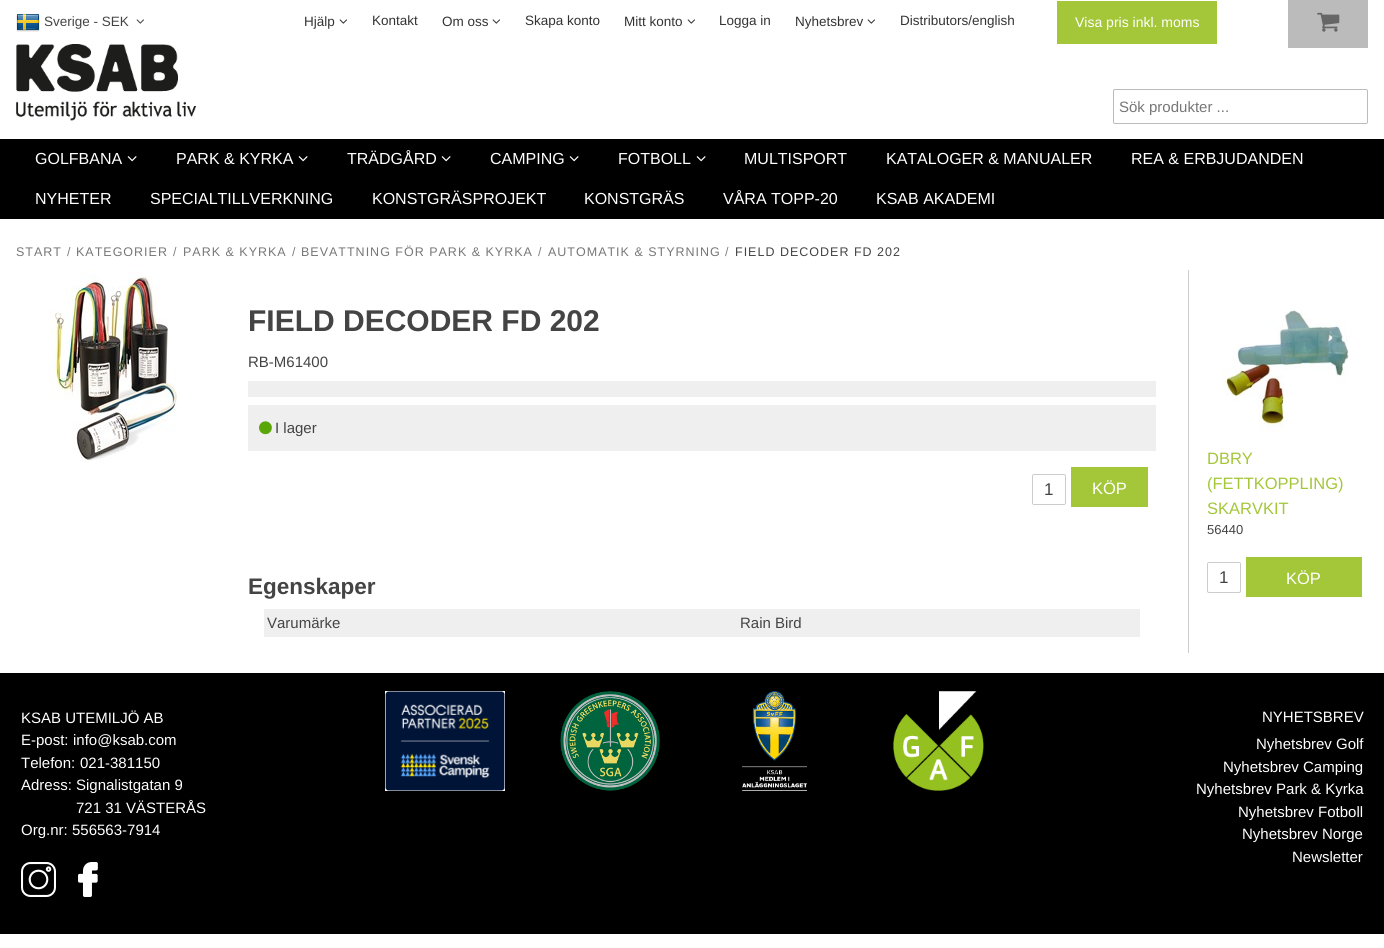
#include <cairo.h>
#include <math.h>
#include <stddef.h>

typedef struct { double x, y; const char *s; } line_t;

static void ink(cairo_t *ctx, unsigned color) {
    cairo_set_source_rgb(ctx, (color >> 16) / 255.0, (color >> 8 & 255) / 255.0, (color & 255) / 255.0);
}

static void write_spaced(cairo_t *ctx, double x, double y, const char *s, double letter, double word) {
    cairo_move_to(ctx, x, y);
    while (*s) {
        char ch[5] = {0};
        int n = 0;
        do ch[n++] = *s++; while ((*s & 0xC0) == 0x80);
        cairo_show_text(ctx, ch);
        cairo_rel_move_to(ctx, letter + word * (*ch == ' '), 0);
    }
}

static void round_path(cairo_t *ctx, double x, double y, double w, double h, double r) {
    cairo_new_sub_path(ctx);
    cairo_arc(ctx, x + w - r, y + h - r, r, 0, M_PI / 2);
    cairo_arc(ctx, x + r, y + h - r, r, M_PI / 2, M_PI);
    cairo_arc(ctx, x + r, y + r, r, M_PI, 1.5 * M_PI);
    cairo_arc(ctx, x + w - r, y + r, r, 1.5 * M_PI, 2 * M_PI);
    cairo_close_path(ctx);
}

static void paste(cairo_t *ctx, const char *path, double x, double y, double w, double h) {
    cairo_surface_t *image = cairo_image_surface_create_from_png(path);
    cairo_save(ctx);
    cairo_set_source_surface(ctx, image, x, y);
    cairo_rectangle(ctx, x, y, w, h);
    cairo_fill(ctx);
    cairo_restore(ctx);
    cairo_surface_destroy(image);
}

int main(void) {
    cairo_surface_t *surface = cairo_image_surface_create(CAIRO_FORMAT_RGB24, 1384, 948);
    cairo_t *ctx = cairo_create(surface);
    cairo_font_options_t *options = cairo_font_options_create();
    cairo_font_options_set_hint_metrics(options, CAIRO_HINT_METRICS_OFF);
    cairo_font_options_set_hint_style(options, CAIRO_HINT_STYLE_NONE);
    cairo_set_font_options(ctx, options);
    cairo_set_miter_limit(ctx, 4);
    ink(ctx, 0xFFFFFF);
    cairo_paint(ctx);
    paste(ctx, "media/1.png", 16, 14, 24, 18);
    cairo_select_font_face(ctx, "Liberation Sans", CAIRO_FONT_SLANT_NORMAL, CAIRO_FONT_WEIGHT_NORMAL);
    cairo_set_font_size(ctx, 13.5);
    ink(ctx, 0x444444);
    cairo_move_to(ctx, 44, 26);
    cairo_show_text(ctx, "Sverige - SEK");
    paste(ctx, "media/2.png", 136, 19, 8, 5);
    ink(ctx, 0x333333);
    cairo_move_to(ctx, 304, 26);
    cairo_show_text(ctx, "Hjälp");
    paste(ctx, "media/3.png", 339, 19, 8, 5);
    cairo_move_to(ctx, 372, 25);
    cairo_show_text(ctx, "Kontakt");
    cairo_move_to(ctx, 442, 26);
    cairo_show_text(ctx, "Om oss");
    paste(ctx, "media/3.png", 492, 19, 8, 5);
    cairo_move_to(ctx, 525, 25);
    cairo_show_text(ctx, "Skapa konto");
    cairo_move_to(ctx, 624, 26);
    cairo_show_text(ctx, "Mitt konto");
    paste(ctx, "media/3.png", 687, 19, 8, 5);
    cairo_move_to(ctx, 719, 25);
    cairo_show_text(ctx, "Logga in");
    cairo_move_to(ctx, 795, 26);
    cairo_show_text(ctx, "Nyhetsbrev");
    paste(ctx, "media/3.png", 867, 19, 8, 5);
    cairo_move_to(ctx, 900, 25);
    cairo_show_text(ctx, "Distributors/english");
    ink(ctx, 0xA4C639);
    cairo_rectangle(ctx, 1057, 1, 160, 43);
    cairo_fill(ctx);
    cairo_set_font_size(ctx, 14);
    ink(ctx, 0xFFFFFF);
    cairo_move_to(ctx, 1075, 27);
    cairo_show_text(ctx, "Visa pris inkl. moms");
    ink(ctx, 0xBBBBBB);
    cairo_rectangle(ctx, 1288, 0, 80, 48);
    cairo_fill(ctx);
    paste(ctx, "media/4.png", 1317, 12, 23, 20);
    paste(ctx, "media/5.png", 16, 44, 180, 77);
    round_path(ctx, 1113.5, 89.5, 254, 34, 1.5);
    cairo_set_line_width(ctx, 1);
    cairo_stroke(ctx);
    cairo_set_font_size(ctx, 15);
    ink(ctx, 0x777777);
    cairo_move_to(ctx, 1119, 112);
    cairo_show_text(ctx, "Sök produkter ...");
    ink(ctx, 0x000000);
    cairo_rectangle(ctx, 0, 139, 1384, 80);
    cairo_fill(ctx);
    cairo_set_font_size(ctx, 16);
    ink(ctx, 0xFFFFFF);
    cairo_move_to(ctx, 35, 164);
    cairo_show_text(ctx, "GOLFBANA");
    paste(ctx, "media/6.png", 127, 156, 10, 6);
    cairo_move_to(ctx, 176, 164);
    cairo_show_text(ctx, "PARK & KYRKA");
    paste(ctx, "media/6.png", 298, 156, 10, 6);
    cairo_move_to(ctx, 347, 164);
    cairo_show_text(ctx, "TRÄDGÅRD");
    paste(ctx, "media/6.png", 441, 156, 10, 6);
    cairo_move_to(ctx, 490, 164);
    cairo_show_text(ctx, "CAMPING");
    paste(ctx, "media/6.png", 569, 156, 10, 6);
    cairo_move_to(ctx, 618, 164);
    cairo_show_text(ctx, "FOTBOLL");
    paste(ctx, "media/6.png", 696, 156, 10, 6);
    {
        static const line_t items[] = {
            {744, 164, "MULTISPORT"},
            {886, 164, "KATALOGER & MANUALER"},
            {1131, 164, "REA & ERBJUDANDEN"},
            {35, 204, "NYHETER"},
            {150, 204, "SPECIALTILLVERKNING"},
            {372, 204, "KONSTGRÄSPROJEKT"},
            {584, 204, "KONSTGRÄS"},
            {723, 204, "VÅRA TOPP-20"},
            {876, 204, "KSAB AKADEMI"},
        };
        for (size_t i = 0; i < sizeof items / sizeof *items; i++) {
            cairo_move_to(ctx, items[i].x, items[i].y);
            cairo_show_text(ctx, items[i].s);
        }
    }
    cairo_set_font_size(ctx, 12.5);
    ink(ctx, 0x777777);
    write_spaced(ctx, 16, 256, "START", 1, 0);
    ink(ctx, 0x808080);
    write_spaced(ctx, 67, 256, "/", 1, 0);
    ink(ctx, 0x777777);
    write_spaced(ctx, 76, 256, "KATEGORIER", 1, 0);
    ink(ctx, 0x808080);
    write_spaced(ctx, 173, 256, "/", 1, 0);
    ink(ctx, 0x777777);
    write_spaced(ctx, 183, 256, "PARK & KYRKA", 1, 0);
    ink(ctx, 0x808080);
    write_spaced(ctx, 292, 256, "/", 1, 0);
    ink(ctx, 0x777777);
    write_spaced(ctx, 301, 256, "BEVATTNING FÖR PARK & KYRKA", 1, 0);
    ink(ctx, 0x808080);
    write_spaced(ctx, 538, 256, "/", 1, 0);
    ink(ctx, 0x777777);
    write_spaced(ctx, 548, 256, "AUTOMATIK & STYRNING", 1, 0);
    ink(ctx, 0x808080);
    write_spaced(ctx, 725, 256, "/", 1, 0);
    ink(ctx, 0x444444);
    write_spaced(ctx, 735, 256, "FIELD DECODER FD 202", 1, 0);
    paste(ctx, "media/7.png", 48, 270, 129, 192);
    cairo_select_font_face(ctx, "Liberation Sans", CAIRO_FONT_SLANT_NORMAL, CAIRO_FONT_WEIGHT_BOLD);
    cairo_set_font_size(ctx, 30);
    cairo_move_to(ctx, 248, 331);
    cairo_show_text(ctx, "FIELD DECODER FD 202");
    cairo_select_font_face(ctx, "Liberation Sans", CAIRO_FONT_SLANT_NORMAL, CAIRO_FONT_WEIGHT_NORMAL);
    cairo_set_font_size(ctx, 15);
    cairo_move_to(ctx, 248, 367);
    cairo_show_text(ctx, "RB-M61400");
    ink(ctx, 0xEFEFEF);
    cairo_rectangle(ctx, 248, 381, 908, 16);
    cairo_fill(ctx);
    cairo_rectangle(ctx, 248, 405, 908, 46);
    cairo_fill(ctx);
    paste(ctx, "media/8.png", 259, 421, 13, 14);
    ink(ctx, 0x444444);
    cairo_move_to(ctx, 275, 433);
    cairo_show_text(ctx, "I lager");
    round_path(ctx, 1032.5, 474.5, 33, 30, 1.5);
    ink(ctx, 0xCCCCCC);
    cairo_stroke(ctx);
    cairo_set_font_size(ctx, 17);
    ink(ctx, 0x444444);
    cairo_move_to(ctx, 1044, 495);
    cairo_show_text(ctx, "1");
    ink(ctx, 0xA4C639);
    cairo_rectangle(ctx, 1071, 467, 77, 40);
    cairo_fill(ctx);
    cairo_set_font_size(ctx, 16.5);
    ink(ctx, 0xFFFFFF);
    cairo_move_to(ctx, 1092, 494);
    cairo_show_text(ctx, "KÖP");
    cairo_select_font_face(ctx, "Liberation Sans", CAIRO_FONT_SLANT_NORMAL, CAIRO_FONT_WEIGHT_BOLD);
    cairo_set_font_size(ctx, 22.5);
    ink(ctx, 0x444444);
    cairo_move_to(ctx, 248, 594);
    cairo_show_text(ctx, "Egenskaper");
    ink(ctx, 0xEFEFEF);
    cairo_rectangle(ctx, 264, 609, 876, 28);
    cairo_fill(ctx);
    cairo_select_font_face(ctx, "Liberation Sans", CAIRO_FONT_SLANT_NORMAL, CAIRO_FONT_WEIGHT_NORMAL);
    cairo_set_font_size(ctx, 15);
    ink(ctx, 0x444444);
    cairo_move_to(ctx, 267, 628);
    cairo_show_text(ctx, "Varumärke");
    cairo_move_to(ctx, 740, 628);
    cairo_show_text(ctx, "Rain Bird");
    ink(ctx, 0xCCCCCC);
    cairo_rectangle(ctx, 1188, 270, 1, 383);
    cairo_fill(ctx);
    paste(ctx, "media/9.png", 1220, 310, 129, 122);
    cairo_set_font_size(ctx, 16.5);
    ink(ctx, 0xA4C639);
    {
        static const line_t items[] = {
            {1207, 464, "DBRY"},
            {1207, 489, "(FETTKOPPLING)"},
            {1207, 514, "SKARVKIT"},
        };
        for (size_t i = 0; i < sizeof items / sizeof *items; i++) {
            cairo_move_to(ctx, items[i].x, items[i].y);
            cairo_show_text(ctx, items[i].s);
        }
    }
    cairo_set_font_size(ctx, 13);
    ink(ctx, 0x444444);
    cairo_move_to(ctx, 1207, 534);
    cairo_show_text(ctx, "56440");
    round_path(ctx, 1207.5, 562.5, 33, 30, 1.5);
    ink(ctx, 0xCCCCCC);
    cairo_stroke(ctx);
    cairo_set_font_size(ctx, 17);
    ink(ctx, 0x444444);
    cairo_move_to(ctx, 1219, 583);
    cairo_show_text(ctx, "1");
    ink(ctx, 0xA4C639);
    cairo_rectangle(ctx, 1246, 557, 116, 40);
    cairo_fill(ctx);
    cairo_set_font_size(ctx, 16.5);
    ink(ctx, 0xFFFFFF);
    cairo_move_to(ctx, 1286, 584);
    cairo_show_text(ctx, "KÖP");
    ink(ctx, 0x000000);
    cairo_rectangle(ctx, 0, 673, 1384, 261);
    cairo_fill(ctx);
    cairo_set_font_size(ctx, 15);
    ink(ctx, 0xFFFFFF);
    {
        static const line_t items[] = {
            {21, 723, "KSAB UTEMILJÖ AB"},
            {21, 745, "E-post:"},
            {73, 745, "info@ksab.com"},
            {21, 768, "Telefon:"},
            {80, 768, "021-381150"},
            {21, 790, "Adress:"},
            {76, 790, "Signalistgatan 9"},
            {76, 813, "721 31 VÄSTERÅS"},
            {21, 835, "Org.nr:"},
            {72, 835, "556563-7914"},
        };
        for (size_t i = 0; i < sizeof items / sizeof *items; i++) {
            cairo_move_to(ctx, items[i].x, items[i].y);
            cairo_show_text(ctx, items[i].s);
        }
    }
    paste(ctx, "media/10.png", 21, 862, 35, 35);
    paste(ctx, "media/11.png", 78, 862, 20, 35);
    paste(ctx, "media/12.png", 385, 691, 120, 100);
    paste(ctx, "media/13.png", 560, 691, 100, 100);
    paste(ctx, "media/14.png", 742, 691, 65, 100);
    paste(ctx, "media/15.png", 893, 691, 91, 100);
    {
        static const line_t items[] = {
            {1262, 722, "NYHETSBREV"},
            {1256, 749, "Nyhetsbrev Golf"},
            {1223, 772, "Nyhetsbrev Camping"},
            {1196, 794, "Nyhetsbrev Park & Kyrka"},
            {1238, 817, "Nyhetsbrev Fotboll"},
            {1242, 839, "Nyhetsbrev Norge"},
            {1292, 862, "Newsletter"},
        };
        for (size_t i = 0; i < sizeof items / sizeof *items; i++) {
            cairo_move_to(ctx, items[i].x, items[i].y);
            cairo_show_text(ctx, items[i].s);
        }
    }
    cairo_surface_write_to_png(surface, "image.png");
    cairo_font_options_destroy(options);
    cairo_destroy(ctx);
    cairo_surface_destroy(surface);
    return 0;
}
